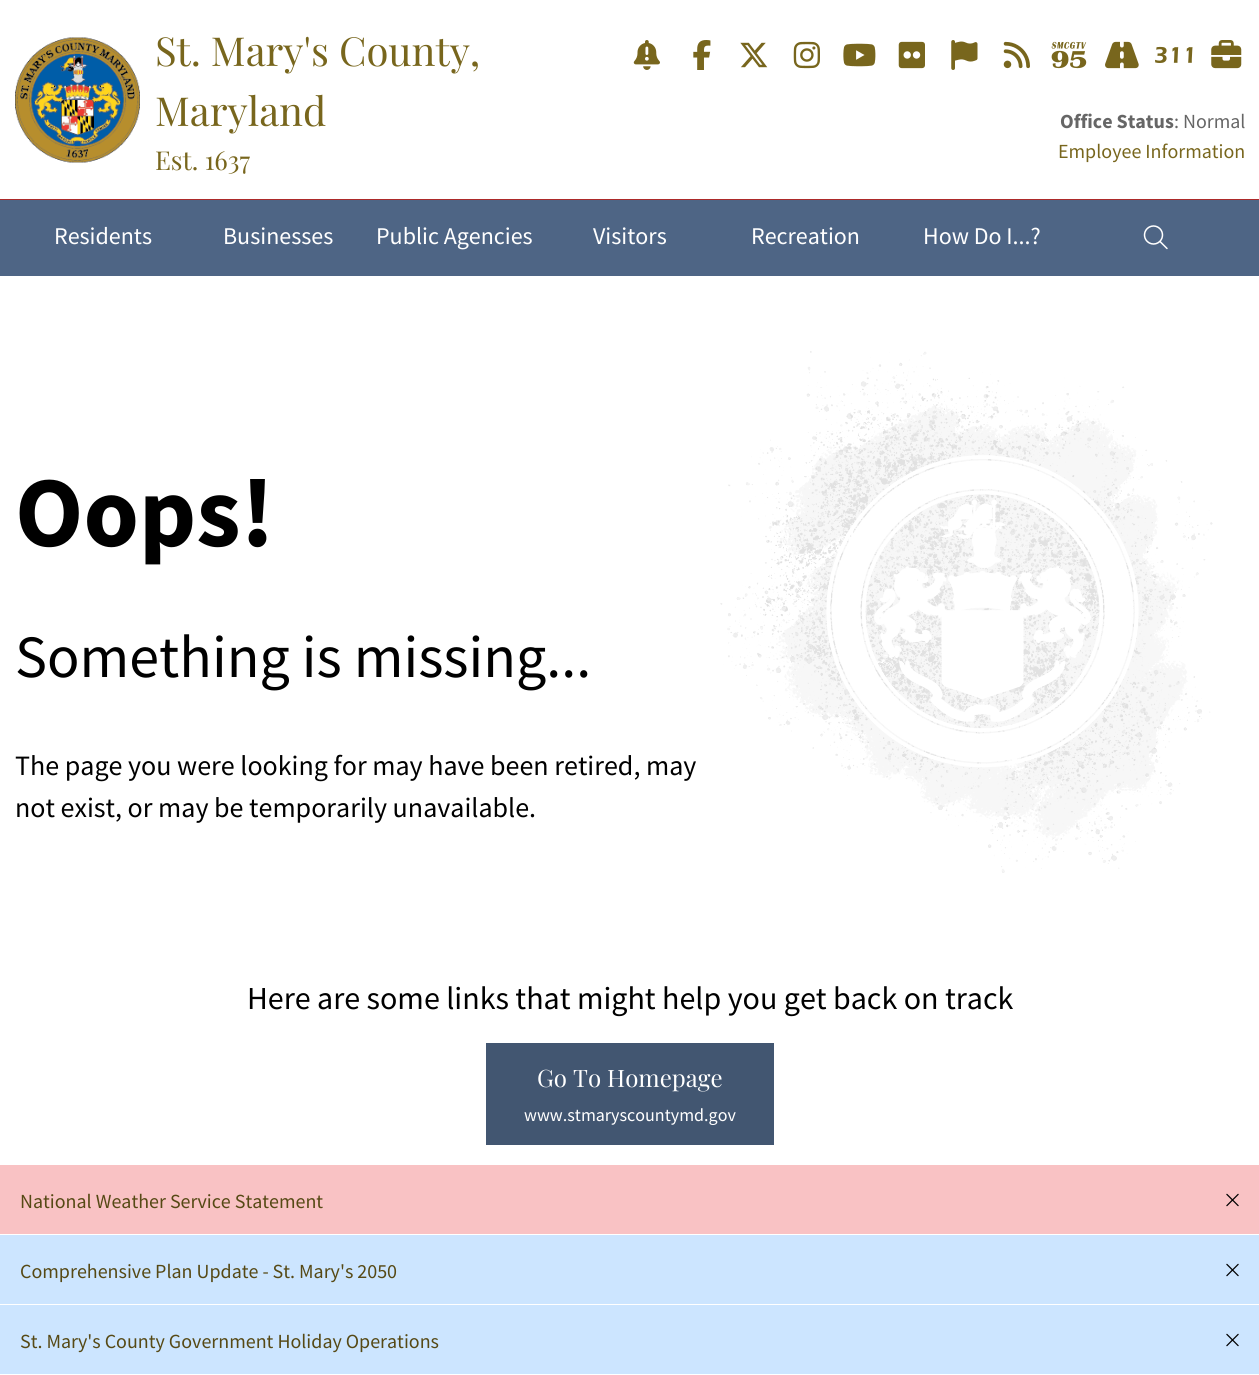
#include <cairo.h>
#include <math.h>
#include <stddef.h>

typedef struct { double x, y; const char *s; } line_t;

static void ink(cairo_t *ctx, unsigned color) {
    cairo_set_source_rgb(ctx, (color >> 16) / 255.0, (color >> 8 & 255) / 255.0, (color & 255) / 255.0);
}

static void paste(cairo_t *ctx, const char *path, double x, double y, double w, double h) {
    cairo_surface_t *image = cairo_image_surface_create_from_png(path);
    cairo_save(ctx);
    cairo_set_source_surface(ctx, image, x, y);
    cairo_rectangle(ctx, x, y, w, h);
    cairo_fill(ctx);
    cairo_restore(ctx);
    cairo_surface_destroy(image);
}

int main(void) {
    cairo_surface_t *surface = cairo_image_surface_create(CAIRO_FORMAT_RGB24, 1259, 1375);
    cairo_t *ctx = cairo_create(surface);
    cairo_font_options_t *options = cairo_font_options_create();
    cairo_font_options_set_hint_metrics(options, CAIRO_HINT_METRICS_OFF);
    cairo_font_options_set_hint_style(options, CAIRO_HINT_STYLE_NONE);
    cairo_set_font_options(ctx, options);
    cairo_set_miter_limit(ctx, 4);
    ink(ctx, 0xFFFFFF);
    cairo_paint(ctx);
    paste(ctx, "media/1.png", 15, 37, 125, 126);
    cairo_select_font_face(ctx, "Playfair Display", CAIRO_FONT_SLANT_NORMAL, CAIRO_FONT_WEIGHT_NORMAL);
    cairo_set_font_size(ctx, 40);
    ink(ctx, 0x78661D);
    cairo_move_to(ctx, 155, 66);
    cairo_show_text(ctx, "St. Mary's County,");
    cairo_move_to(ctx, 155, 126);
    cairo_show_text(ctx, "Maryland");
    cairo_set_font_size(ctx, 26);
    cairo_move_to(ctx, 155, 170);
    cairo_show_text(ctx, "Est. 1637");
    paste(ctx, "media/2.png", 633, 40, 27, 30);
    paste(ctx, "media/3.png", 693, 40, 18, 30);
    paste(ctx, "media/4.png", 740, 42, 28, 26);
    paste(ctx, "media/5.png", 793, 41, 27, 28);
    paste(ctx, "media/6.png", 843, 43, 33, 24);
    paste(ctx, "media/7.png", 898, 41, 27, 28);
    paste(ctx, "media/8.png", 951, 40, 27, 30);
    paste(ctx, "media/9.png", 1003, 41, 27, 28);
    paste(ctx, "media/10.png", 1051, 41, 36, 28);
    paste(ctx, "media/11.png", 1105, 41, 34, 28);
    paste(ctx, "media/12.png", 1155, 46, 38, 17);
    paste(ctx, "media/13.png", 1211, 40, 31, 29);
    cairo_select_font_face(ctx, "Source Sans Pro", CAIRO_FONT_SLANT_NORMAL, CAIRO_FONT_WEIGHT_BOLD);
    cairo_set_font_size(ctx, 20);
    ink(ctx, 0x666666);
    cairo_move_to(ctx, 1060, 128);
    cairo_show_text(ctx, "Office Status");
    cairo_select_font_face(ctx, "Source Sans Pro", CAIRO_FONT_SLANT_NORMAL, CAIRO_FONT_WEIGHT_NORMAL);
    cairo_move_to(ctx, 1174, 128);
    cairo_show_text(ctx, ": Normal");
    ink(ctx, 0x78661D);
    cairo_move_to(ctx, 1058, 158);
    cairo_show_text(ctx, "Employee Information");
    ink(ctx, 0x4E6585);
    cairo_rectangle(ctx, 0, 200, 1259, 76);
    cairo_fill(ctx);
    ink(ctx, 0xAC2A2A);
    cairo_rectangle(ctx, 0, 199, 1259, 1);
    cairo_fill(ctx);
    cairo_set_font_size(ctx, 24);
    ink(ctx, 0xFFFFFF);
    {
        static const line_t items[] = {
            {54, 244, "Residents"},
            {223, 244, "Businesses"},
            {376, 244, "Public Agencies"},
            {593, 244, "Visitors"},
            {751, 244, "Recreation"},
            {923, 244, "How Do I...?"},
        };
        for (size_t i = 0; i < sizeof items / sizeof *items; i++) {
            cairo_move_to(ctx, items[i].x, items[i].y);
            cairo_show_text(ctx, items[i].s);
        }
    }
    paste(ctx, "media/14.png", 1143, 225, 25, 25);
    cairo_select_font_face(ctx, "Source Sans Pro", CAIRO_FONT_SLANT_NORMAL, CAIRO_FONT_WEIGHT_BOLD);
    cairo_set_font_size(ctx, 100);
    ink(ctx, 0x000000);
    cairo_move_to(ctx, 15, 546);
    cairo_show_text(ctx, "Oops!");
    paste(ctx, "media/15.png", 720, 351, 493, 522);
    cairo_select_font_face(ctx, "Source Sans Pro", CAIRO_FONT_SLANT_NORMAL, CAIRO_FONT_WEIGHT_NORMAL);
    cairo_set_font_size(ctx, 60);
    cairo_move_to(ctx, 15, 677);
    cairo_show_text(ctx, "Something is missing...");
    cairo_set_font_size(ctx, 28);
    cairo_move_to(ctx, 15, 775);
    cairo_show_text(ctx, "The page you were looking for may have been retired, may");
    cairo_move_to(ctx, 15, 817);
    cairo_show_text(ctx, "not exist, or may be temporarily unavailable.");
    cairo_set_font_size(ctx, 32);
    cairo_move_to(ctx, 247, 1009);
    cairo_show_text(ctx, "Here are some links that might help you get back on track");
    ink(ctx, 0x425671);
    cairo_rectangle(ctx, 486, 1043, 288, 102);
    cairo_fill(ctx);
    cairo_select_font_face(ctx, "Playfair Display", CAIRO_FONT_SLANT_NORMAL, CAIRO_FONT_WEIGHT_NORMAL);
    cairo_set_font_size(ctx, 24);
    ink(ctx, 0xFFFFFF);
    cairo_move_to(ctx, 537, 1087);
    cairo_show_text(ctx, "Go To Homepage");
    cairo_select_font_face(ctx, "Source Sans Pro", CAIRO_FONT_SLANT_NORMAL, CAIRO_FONT_WEIGHT_NORMAL);
    cairo_set_font_size(ctx, 18);
    cairo_move_to(ctx, 524, 1121);
    cairo_show_text(ctx, "www.stmaryscountymd.gov");
    ink(ctx, 0xF9C2C4);
    cairo_rectangle(ctx, 0, 1165, 1259, 69);
    cairo_fill(ctx);
    cairo_set_font_size(ctx, 20);
    ink(ctx, 0x564915);
    cairo_move_to(ctx, 20, 1208);
    cairo_show_text(ctx, "National Weather Service Statement");
    paste(ctx, "media/16.png", 1226, 1193, 13, 14);
    ink(ctx, 0xCCE5FF);
    cairo_rectangle(ctx, 0, 1235, 1259, 69);
    cairo_fill(ctx);
    ink(ctx, 0x564915);
    cairo_move_to(ctx, 20, 1278);
    cairo_show_text(ctx, "Comprehensive Plan Update - St. Mary's 2050");
    paste(ctx, "media/17.png", 1226, 1263, 13, 14);
    ink(ctx, 0xCCE5FF);
    cairo_rectangle(ctx, 0, 1305, 1259, 69);
    cairo_fill(ctx);
    ink(ctx, 0x564915);
    cairo_move_to(ctx, 20, 1348);
    cairo_show_text(ctx, "St. Mary's County Government Holiday Operations");
    paste(ctx, "media/17.png", 1226, 1333, 13, 14);
    cairo_surface_write_to_png(surface, "image.png");
    cairo_font_options_destroy(options);
    cairo_destroy(ctx);
    cairo_surface_destroy(surface);
    return 0;
}
